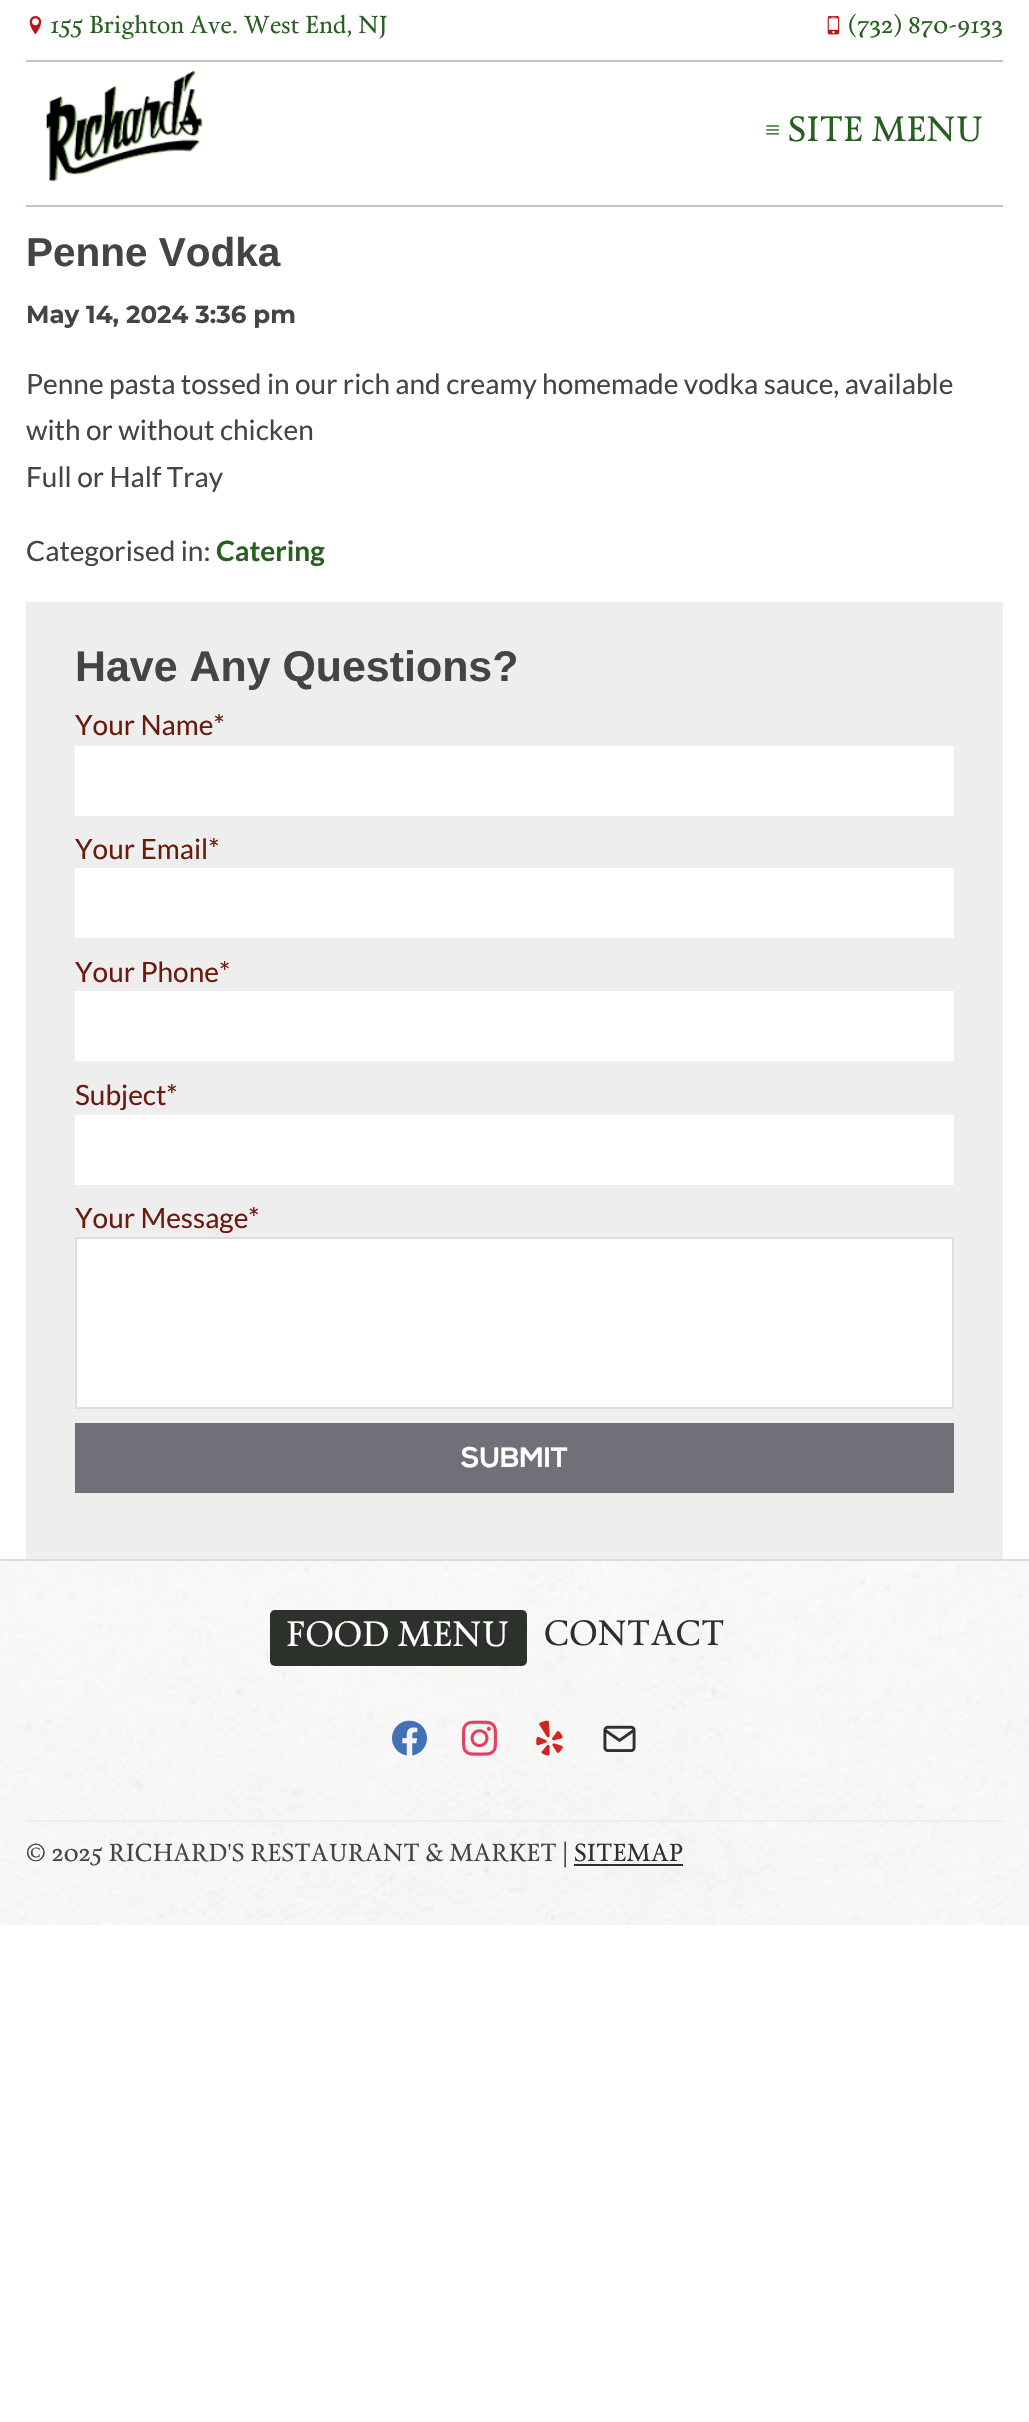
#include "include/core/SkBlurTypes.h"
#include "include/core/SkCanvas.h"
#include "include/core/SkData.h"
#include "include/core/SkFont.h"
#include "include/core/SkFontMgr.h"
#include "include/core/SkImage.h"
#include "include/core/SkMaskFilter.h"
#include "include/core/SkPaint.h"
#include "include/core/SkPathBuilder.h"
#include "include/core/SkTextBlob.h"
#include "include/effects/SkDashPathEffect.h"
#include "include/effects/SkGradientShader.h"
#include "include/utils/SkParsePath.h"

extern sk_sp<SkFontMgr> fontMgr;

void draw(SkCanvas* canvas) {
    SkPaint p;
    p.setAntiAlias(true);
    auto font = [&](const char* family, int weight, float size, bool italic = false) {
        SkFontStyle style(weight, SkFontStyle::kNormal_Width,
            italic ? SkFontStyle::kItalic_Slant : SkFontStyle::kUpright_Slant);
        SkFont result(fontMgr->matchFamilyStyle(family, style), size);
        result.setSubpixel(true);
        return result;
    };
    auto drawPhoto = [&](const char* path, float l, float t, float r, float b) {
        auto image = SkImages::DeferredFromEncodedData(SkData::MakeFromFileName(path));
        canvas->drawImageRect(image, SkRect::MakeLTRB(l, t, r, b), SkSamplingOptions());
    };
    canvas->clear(0xFFFFFFFF);
    drawPhoto("media/1.png", 29, 16, 42, 35);
    auto font1 = font("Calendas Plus", 400, 24.5f);
    p.setColor(0xFF275F1F);
    canvas->drawString("155 Brighton Ave. West End, NJ", 50, 33, font1, p);
    drawPhoto("media/2.png", 827, 16, 840, 35);
    canvas->drawString("(732) 870-9133", 848, 33, font1, p);
    p.setColor(0xFFBACBBB);
    canvas->drawRect(SkRect::MakeLTRB(26, 60, 1003, 62), p);
    canvas->drawRect(SkRect::MakeLTRB(26, 205, 1003, 207), p);
    drawPhoto("media/3.png", 46, 70, 203, 182);
    drawPhoto("media/4.png", 766, 125, 780, 135);
    auto font2 = font("Calendas Plus", 400, 35);
    p.setColor(0xFF275F1F);
    canvas->drawString("SITE MENU", 788, 141, font2, p);
    auto font3 = font("Liberation Sans", 700, 40.5f);
    p.setColor(0xFF444444);
    canvas->drawString("Penne Vodka", 26, 266, font3, p);
    auto font4 = font("Montserrat", 700, 24.5f);
    canvas->drawString("May 14, 2024 3:36 pm", 26, 323, font4, p);
    auto font5 = font("Lato", 400, 28);
    {
        const struct { const char* s; float x, y; } items[] = {
            {"Penne pasta tossed in our rich and creamy homemade vodka sauce, available", 26, 394},
            {"with or without chicken", 26, 440},
            {"Full or Half Tray", 26, 487},
            {"Categorised in:", 26, 561},
        };
        for (auto [s, x, y] : items) {
            canvas->drawString(s, x, y, font5, p);
        }
    }
    auto font6 = font("Lato", 700, 28);
    p.setColor(0xFF275F1F);
    canvas->drawString("Catering", 216, 561, font6, p);
    p.setColor(0xFFEEEEEE);
    canvas->drawRect(SkRect::MakeLTRB(26, 602, 1003, 1559), p);
    auto font7 = font("Liberation Sans", 700, 42.9f);
    p.setColor(0xFF444444);
    canvas->drawString("Have Any Questions?", 75, 681, font7, p);
    p.setColor(0xFF6B1B0E);
    canvas->drawString("Your Name*", 75, 735, font5, p);
    p.setColor(0xFFFFFFFF);
    canvas->drawRect(SkRect::MakeLTRB(75, 746, 954, 816), p);
    p.setColor(0xFF6B1B0E);
    canvas->drawString("Your Email*", 75, 859, font5, p);
    p.setColor(0xFFFFFFFF);
    canvas->drawRect(SkRect::MakeLTRB(75, 868, 954, 938), p);
    p.setColor(0xFF6B1B0E);
    canvas->drawString("Your Phone*", 75, 982, font5, p);
    p.setColor(0xFFFFFFFF);
    canvas->drawRect(SkRect::MakeLTRB(75, 991, 954, 1061), p);
    p.setColor(0xFF6B1B0E);
    canvas->drawString("Subject*", 75, 1105, font5, p);
    p.setColor(0xFFFFFFFF);
    canvas->drawRect(SkRect::MakeLTRB(75, 1115, 954, 1185), p);
    p.setColor(0xFF6B1B0E);
    canvas->drawString("Your Message*", 75, 1228, font5, p);
    p.setColor(0xFFFFFFFF);
    canvas->drawRect(SkRect::MakeLTRB(76, 1238, 953, 1408), p);
    p.setStyle(SkPaint::kStroke_Style);
    p.setStrokeWidth(2);
    p.setColor(0xFFDDDDDD);
    canvas->drawRect(SkRect::MakeLTRB(76, 1238, 953, 1408), p);
    p.setStyle(SkPaint::kFill_Style);
    p.setColor(0xFF716F77);
    canvas->drawRect(SkRect::MakeLTRB(75, 1423, 954, 1493), p);
    auto font8 = font("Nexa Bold", 700, 28);
    p.setColor(0xFFFFFFFF);
    canvas->drawString("SUBMIT", 461, 1467, font8, p);
    drawPhoto("media/5.png", 0, 1561, 1029, 1925);
    p.setColor(0xFFDDDDDD);
    canvas->drawRect(SkRect::MakeLTRB(0, 1559, 1029, 1561), p);
    p.setColor(0xFF2C312B);
    canvas->drawRoundRect(SkRect::MakeLTRB(270, 1610, 527, 1666), 5, 5, p);
    p.setColor(0xFFFFFFFF);
    canvas->drawString("FOOD MENU", 286, 1646, font2, p);
    p.setColor(0xFF2C312B);
    canvas->drawString("CONTACT", 544, 1645, font2, p);
    drawPhoto("media/6.png", 392, 1720, 427, 1756);
    drawPhoto("media/7.png", 462, 1720, 497, 1756);
    drawPhoto("media/8.png", 536, 1720, 563, 1756);
    drawPhoto("media/9.png", 603, 1725, 636, 1752);
    p.setColor(0xFFEEEEEE);
    canvas->drawRect(SkRect::MakeLTRB(26, 1820, 1003, 1822), p);
    p.setColor(0xFF444444);
    canvas->drawString("© 2025 RICHARD'S RESTAURANT & MARKET |", 26, 1861, font1, p);
    p.setColor(0xFF2C312B);
    canvas->drawString("SITEMAP", 574, 1861, font1, p);
    canvas->drawRect(SkRect::MakeLTRB(574, 1864, 683, 1866), p);
}
